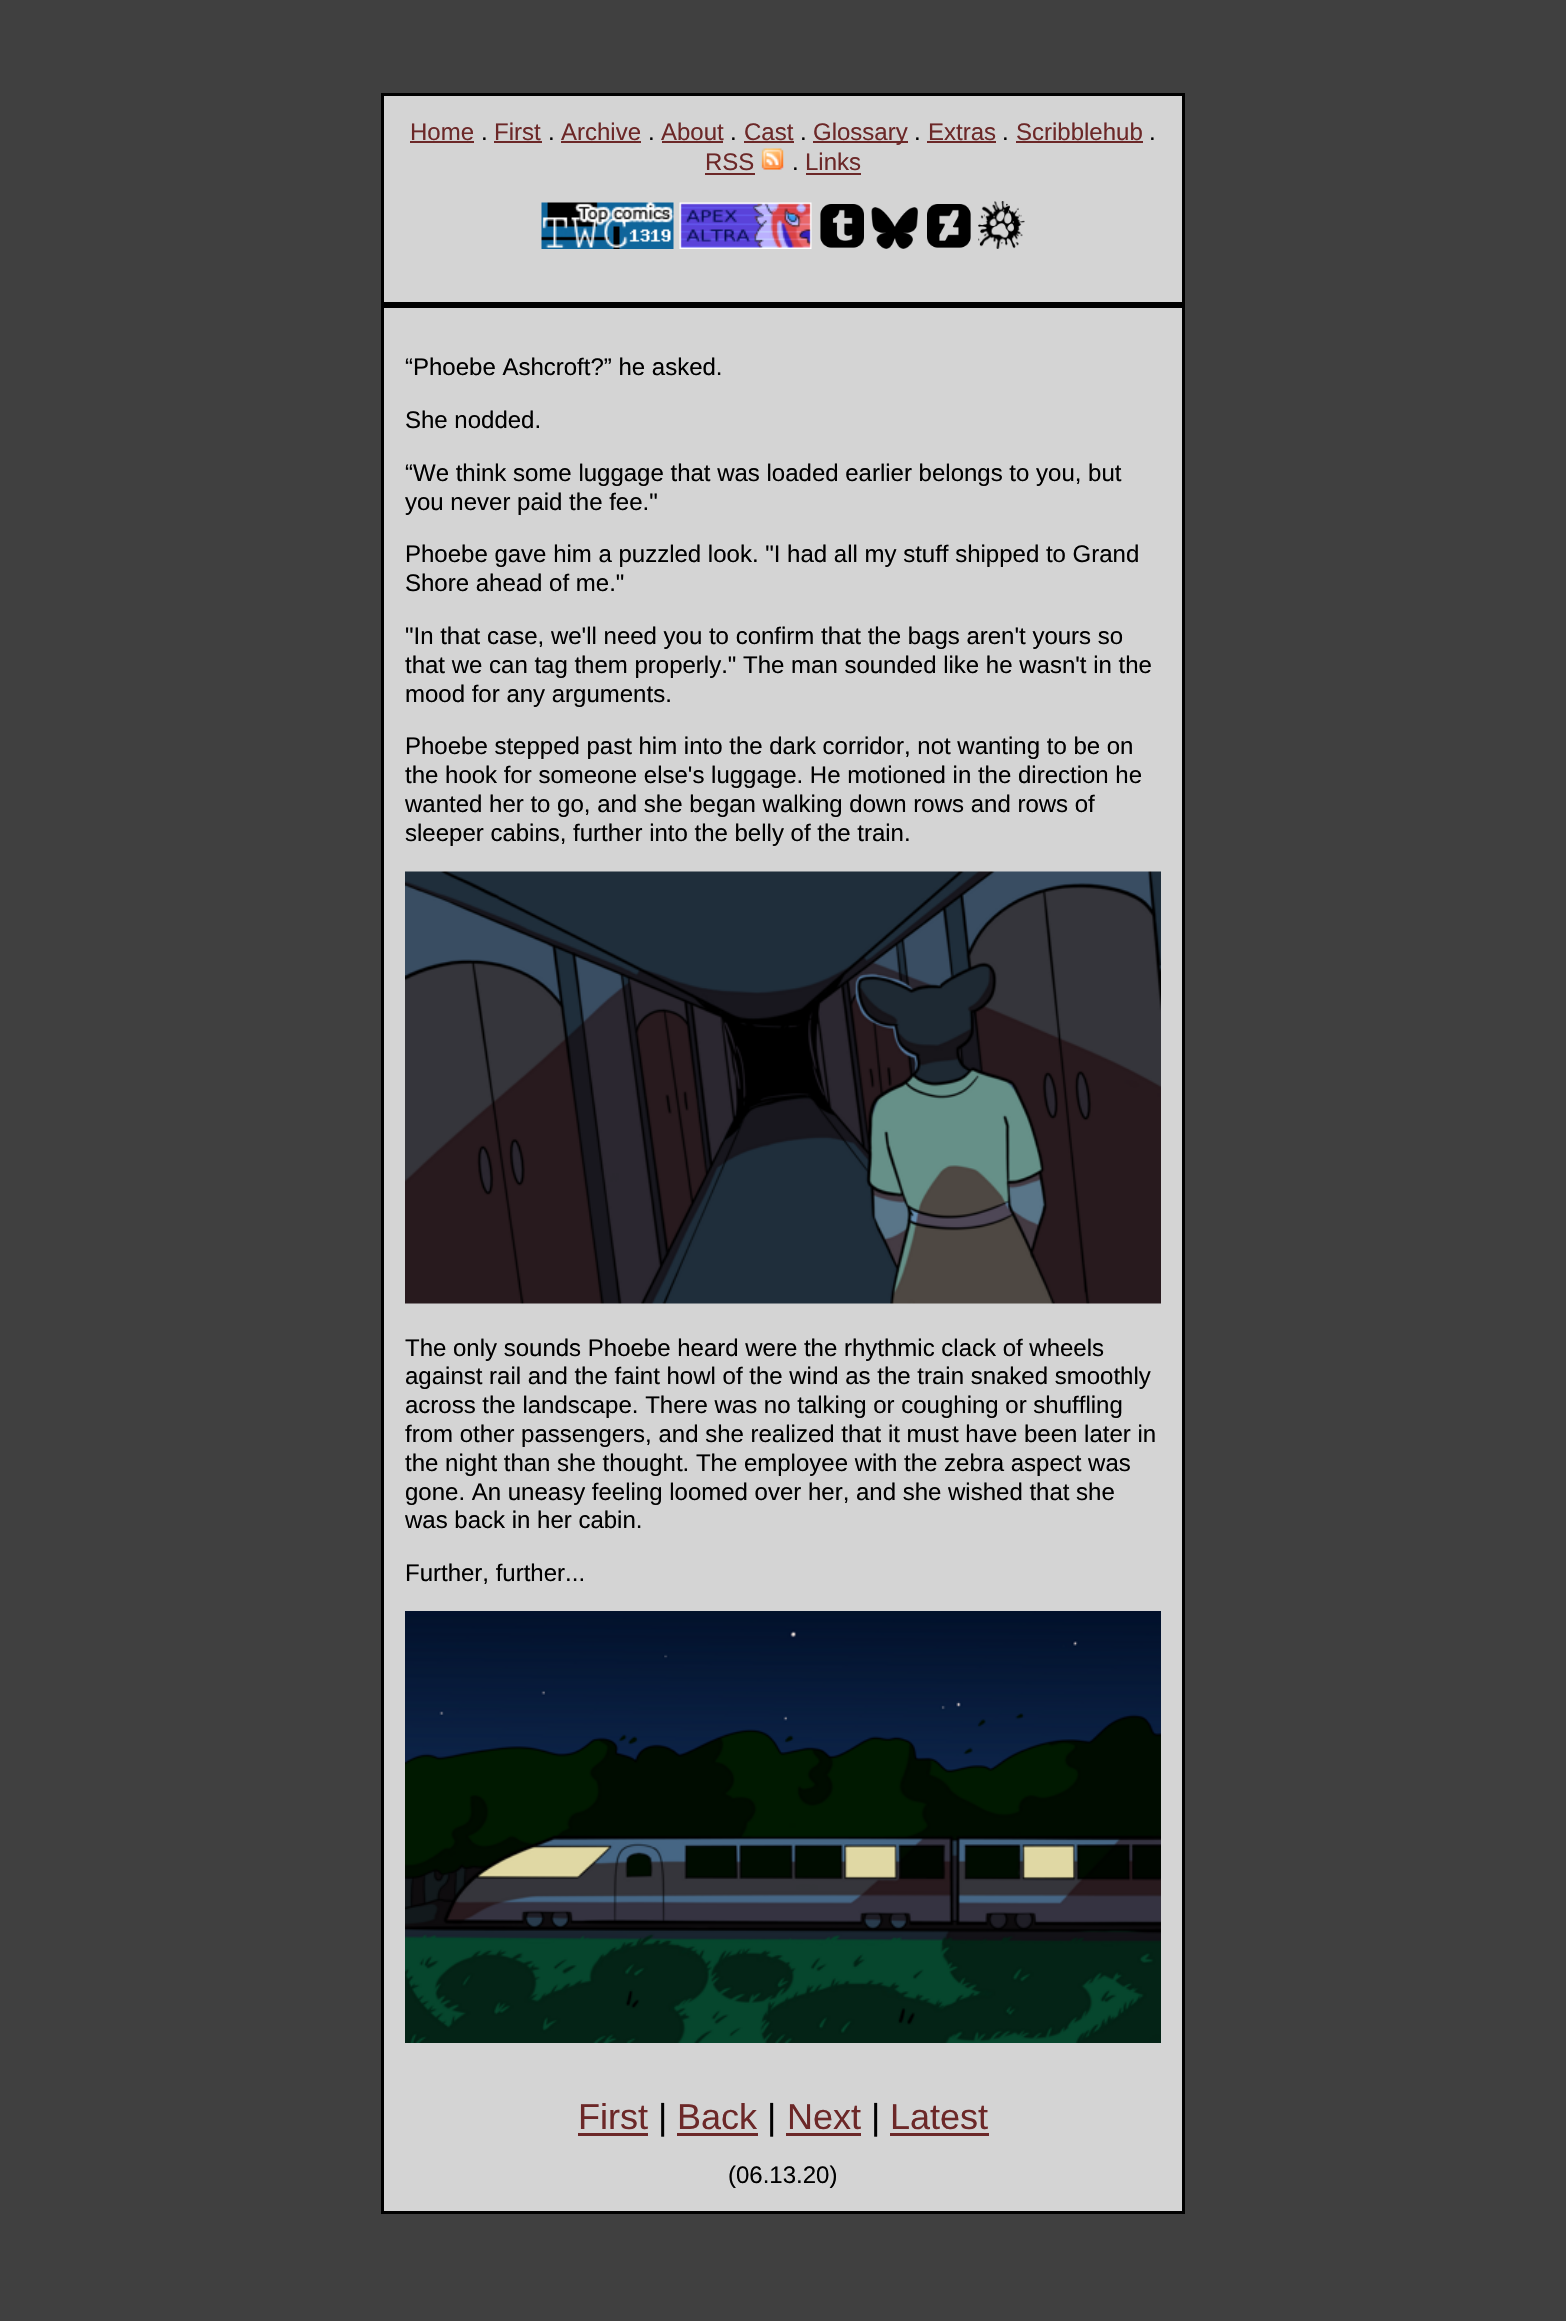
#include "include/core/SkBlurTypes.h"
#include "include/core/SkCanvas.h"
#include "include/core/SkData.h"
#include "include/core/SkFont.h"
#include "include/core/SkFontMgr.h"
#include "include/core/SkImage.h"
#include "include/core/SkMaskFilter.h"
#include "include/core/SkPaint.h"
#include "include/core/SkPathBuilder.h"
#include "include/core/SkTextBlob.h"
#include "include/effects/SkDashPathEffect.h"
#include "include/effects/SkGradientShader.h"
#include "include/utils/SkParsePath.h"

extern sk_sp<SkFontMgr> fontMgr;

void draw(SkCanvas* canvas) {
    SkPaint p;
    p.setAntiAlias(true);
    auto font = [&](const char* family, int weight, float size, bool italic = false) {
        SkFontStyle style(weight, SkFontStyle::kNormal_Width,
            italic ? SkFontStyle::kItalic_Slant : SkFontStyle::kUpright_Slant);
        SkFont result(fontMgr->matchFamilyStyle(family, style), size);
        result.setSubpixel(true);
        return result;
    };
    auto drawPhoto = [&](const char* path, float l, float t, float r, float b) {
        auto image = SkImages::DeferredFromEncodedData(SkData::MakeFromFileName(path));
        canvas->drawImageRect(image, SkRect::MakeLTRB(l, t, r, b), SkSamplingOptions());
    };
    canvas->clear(0xFF404040);
    p.setColor(0xFFD4D4D4);
    canvas->drawRect(SkRect::MakeLTRB(382.5f, 94.5f, 1183.5f, 303.5f), p);
    p.setStyle(SkPaint::kStroke_Style);
    p.setStrokeWidth(3);
    p.setColor(0xFF000000);
    canvas->drawRect(SkRect::MakeLTRB(382.5f, 94.5f, 1183.5f, 303.5f), p);
    auto font1 = font("Liberation Sans", 400, 24);
    p.setStyle(SkPaint::kFill_Style);
    p.setColor(0xFF6C2828);
    canvas->drawString("Home", 410, 140, font1, p);
    canvas->drawRect(SkRect::MakeLTRB(410, 141, 474, 143), p);
    p.setColor(0xFF000000);
    canvas->drawString(".", 481, 140, font1, p);
    p.setColor(0xFF6C2828);
    canvas->drawString("First", 494, 140, font1, p);
    canvas->drawRect(SkRect::MakeLTRB(494, 141, 542, 143), p);
    p.setColor(0xFF000000);
    canvas->drawString(".", 548, 140, font1, p);
    p.setColor(0xFF6C2828);
    canvas->drawString("Archive", 561, 140, font1, p);
    canvas->drawRect(SkRect::MakeLTRB(561, 141, 641, 143), p);
    p.setColor(0xFF000000);
    canvas->drawString(".", 648, 140, font1, p);
    p.setColor(0xFF6C2828);
    canvas->drawString("About", 661, 140, font1, p);
    canvas->drawRect(SkRect::MakeLTRB(662, 141, 723, 143), p);
    p.setColor(0xFF000000);
    canvas->drawString(".", 730, 140, font1, p);
    p.setColor(0xFF6C2828);
    canvas->drawString("Cast", 744, 140, font1, p);
    canvas->drawRect(SkRect::MakeLTRB(744, 141, 794, 143), p);
    p.setColor(0xFF000000);
    canvas->drawString(".", 800, 140, font1, p);
    p.setColor(0xFF6C2828);
    canvas->drawRect(SkRect::MakeLTRB(813, 141, 908, 143), p);
    canvas->drawString("Glossary", 813, 140, font1, p);
    p.setColor(0xFF000000);
    canvas->drawString(".", 914, 140, font1, p);
    p.setColor(0xFF6C2828);
    canvas->drawString("Extras", 928, 140, font1, p);
    canvas->drawRect(SkRect::MakeLTRB(927, 141, 996, 143), p);
    p.setColor(0xFF000000);
    canvas->drawString(".", 1002, 140, font1, p);
    p.setColor(0xFF6C2828);
    canvas->drawString("Scribblehub", 1016, 140, font1, p);
    canvas->drawRect(SkRect::MakeLTRB(1016, 141, 1143, 143), p);
    p.setColor(0xFF000000);
    canvas->drawString(".", 1149, 140, font1, p);
    p.setColor(0xFF6C2828);
    canvas->drawString("RSS", 705, 170, font1, p);
    canvas->drawRect(SkRect::MakeLTRB(705, 173, 755, 175), p);
    drawPhoto("media/1.png", 761, 148, 784, 170);
    p.setColor(0xFF000000);
    canvas->drawString(".", 792, 170, font1, p);
    p.setColor(0xFF6C2828);
    canvas->drawString("Links", 805, 170, font1, p);
    canvas->drawRect(SkRect::MakeLTRB(806, 173, 861, 175), p);
    drawPhoto("media/2.png", 541, 202, 674, 249);
    drawPhoto("media/3.png", 679, 202, 812, 249);
    drawPhoto("media/4.png", 820, 204, 864, 248);
    drawPhoto("media/5.png", 871, 207, 918, 249);
    drawPhoto("media/6.png", 927, 204, 971, 248);
    drawPhoto("media/7.png", 978, 201, 1025, 249);
    p.setColor(0xFFD4D4D4);
    canvas->drawRect(SkRect::MakeLTRB(382.5f, 306.5f, 1183.5f, 2212.5f), p);
    p.setStyle(SkPaint::kStroke_Style);
    p.setColor(0xFF000000);
    canvas->drawRect(SkRect::MakeLTRB(382.5f, 306.5f, 1183.5f, 2212.5f), p);
    p.setStyle(SkPaint::kFill_Style);
    {
        const struct { const char* s; float x, y; } items[] = {
            {"“Phoebe Ashcroft?” he asked.", 405, 375},
            {"She nodded.", 405, 428},
            {"“We think some luggage that was loaded earlier belongs to you, but", 405, 481},
            {"you never paid the fee.\"", 405, 510},
            {"Phoebe gave him a puzzled look. \"I had all my stuff shipped to Grand", 405, 562},
            {"Shore ahead of me.\"", 405, 591},
            {"\"In that case, we'll need you to confirm that the bags aren't yours so", 405, 644},
            {"that we can tag them properly.\" The man sounded like he wasn't in the", 405, 673},
            {"mood for any arguments.", 405, 702},
            {"Phoebe stepped past him into the dark corridor, not wanting to be on", 405, 754},
            {"the hook for someone else's luggage. He motioned in the direction he", 405, 783},
            {"wanted her to go, and she began walking down rows and rows of", 405, 812},
            {"sleeper cabins, further into the belly of the train.", 405, 841},
        };
        for (auto [s, x, y] : items) {
            canvas->drawString(s, x, y, font1, p);
        }
    }
    drawPhoto("media/8.png", 405, 871, 1161, 1304);
    {
        const struct { const char* s; float x, y; } items[] = {
            {"The only sounds Phoebe heard were the rhythmic clack of wheels", 405, 1356},
            {"against rail and the faint howl of the wind as the train snaked smoothly", 405, 1384},
            {"across the landscape. There was no talking or coughing or shuffling", 405, 1413},
            {"from other passengers, and she realized that it must have been later in", 405, 1442},
            {"the night than she thought. The employee with the zebra aspect was", 405, 1471},
            {"gone. An uneasy feeling loomed over her, and she wished that she", 405, 1500},
            {"was back in her cabin.", 405, 1528},
            {"Further, further...", 405, 1581},
        };
        for (auto [s, x, y] : items) {
            canvas->drawString(s, x, y, font1, p);
        }
    }
    drawPhoto("media/9.png", 405, 1611, 1161, 2043);
    auto font2 = font("Liberation Sans", 400, 36);
    p.setColor(0xFF6C2828);
    canvas->drawString("First", 578, 2129, font2, p);
    canvas->drawRect(SkRect::MakeLTRB(578, 2133, 648, 2136), p);
    p.setColor(0xFF000000);
    canvas->drawString("|", 658, 2129, font2, p);
    p.setColor(0xFF6C2828);
    canvas->drawString("Back", 677, 2129, font2, p);
    canvas->drawRect(SkRect::MakeLTRB(677, 2133, 758, 2136), p);
    p.setColor(0xFF000000);
    canvas->drawString("|", 767, 2129, font2, p);
    p.setColor(0xFF6C2828);
    canvas->drawString("Next", 787, 2129, font2, p);
    canvas->drawRect(SkRect::MakeLTRB(786, 2133, 861, 2136), p);
    p.setColor(0xFF000000);
    canvas->drawString("|", 871, 2129, font2, p);
    p.setColor(0xFF6C2828);
    canvas->drawString("Latest", 890, 2129, font2, p);
    canvas->drawRect(SkRect::MakeLTRB(890, 2133, 989, 2136), p);
    p.setColor(0xFF000000);
    canvas->drawString("(06.13.20)", 728, 2183, font1, p);
}
